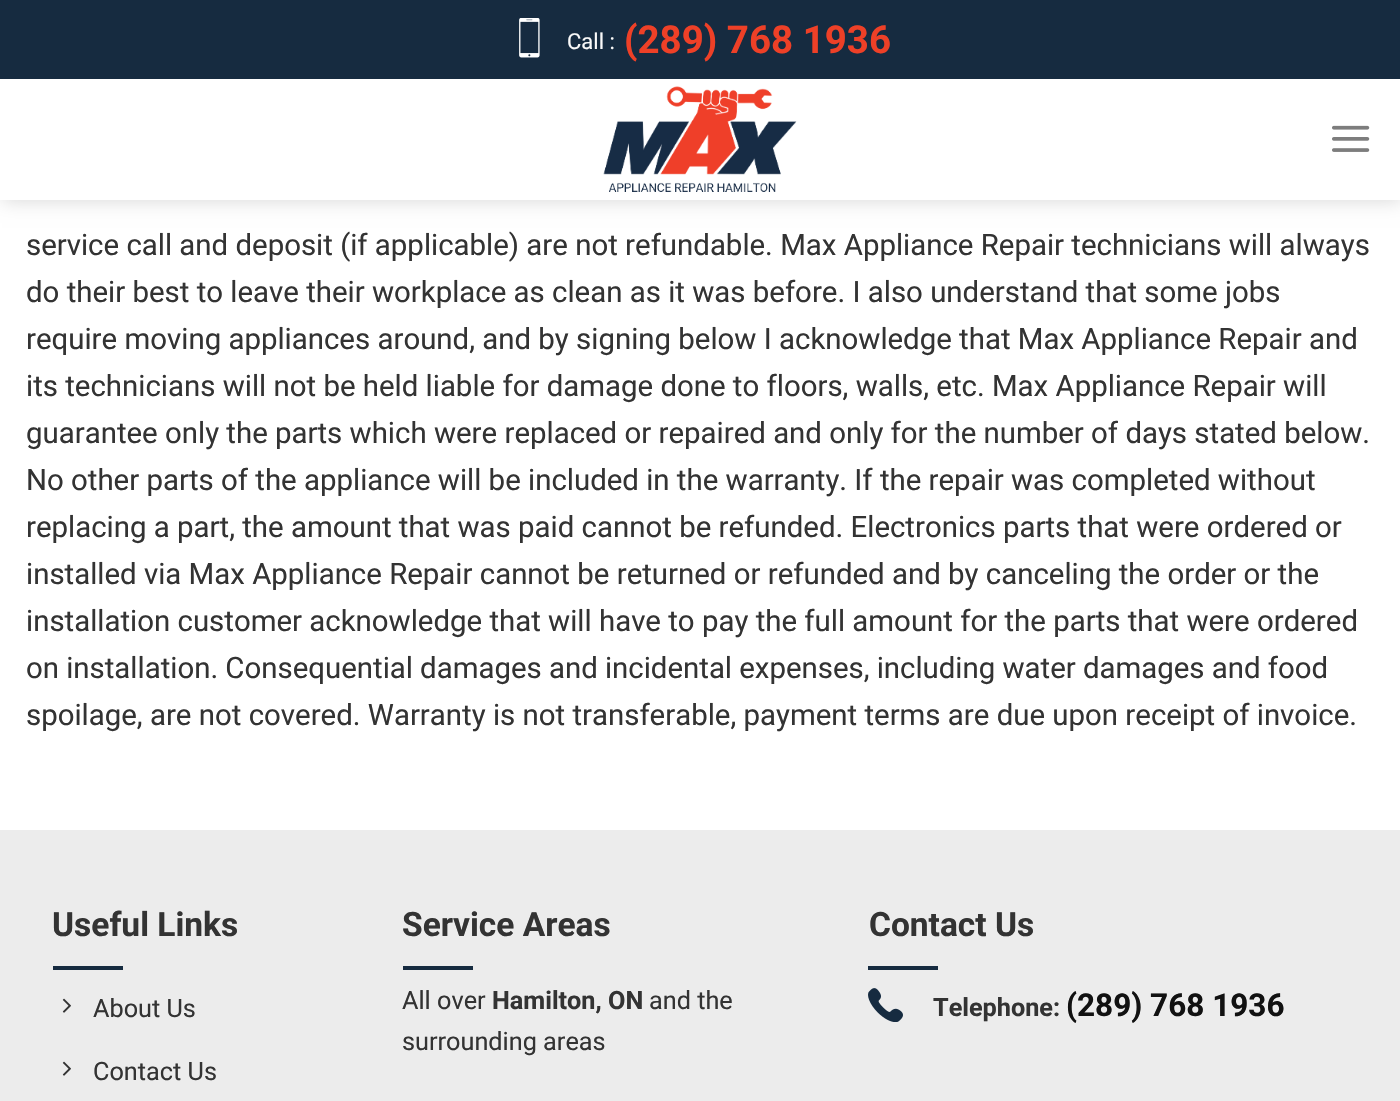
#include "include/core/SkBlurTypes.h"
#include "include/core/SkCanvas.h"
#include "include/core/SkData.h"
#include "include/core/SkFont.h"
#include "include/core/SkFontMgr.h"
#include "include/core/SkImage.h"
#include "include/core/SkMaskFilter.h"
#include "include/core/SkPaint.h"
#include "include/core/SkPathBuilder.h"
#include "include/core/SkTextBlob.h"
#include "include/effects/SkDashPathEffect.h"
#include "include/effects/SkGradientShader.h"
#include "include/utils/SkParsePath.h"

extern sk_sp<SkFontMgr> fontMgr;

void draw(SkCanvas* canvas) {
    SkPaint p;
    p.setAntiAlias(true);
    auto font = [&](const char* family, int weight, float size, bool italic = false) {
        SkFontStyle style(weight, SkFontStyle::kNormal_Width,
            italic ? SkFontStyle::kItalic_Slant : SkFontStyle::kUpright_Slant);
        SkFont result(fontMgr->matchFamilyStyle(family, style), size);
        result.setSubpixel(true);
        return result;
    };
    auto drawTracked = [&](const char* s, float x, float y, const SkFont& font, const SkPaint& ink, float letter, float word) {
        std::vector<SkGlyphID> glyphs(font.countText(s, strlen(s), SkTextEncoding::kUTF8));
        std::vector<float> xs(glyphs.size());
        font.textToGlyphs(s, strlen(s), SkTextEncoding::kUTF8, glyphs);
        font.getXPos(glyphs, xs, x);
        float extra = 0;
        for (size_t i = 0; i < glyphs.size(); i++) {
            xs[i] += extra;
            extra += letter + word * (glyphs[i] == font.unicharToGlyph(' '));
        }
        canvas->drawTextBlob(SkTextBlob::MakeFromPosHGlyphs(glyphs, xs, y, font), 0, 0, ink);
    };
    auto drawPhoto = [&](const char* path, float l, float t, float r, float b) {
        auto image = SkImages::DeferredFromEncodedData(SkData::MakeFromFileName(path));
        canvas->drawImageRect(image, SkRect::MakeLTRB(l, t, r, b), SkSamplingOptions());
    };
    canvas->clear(0xFFFFFFFF);
    p.setColor(0x26000000);
    p.setMaskFilter(SkMaskFilter::MakeBlur(kNormal_SkBlurStyle, 9));
    canvas->drawRect(SkRect::MakeLTRB(2, 2, 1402, 201), p);
    p.setMaskFilter(nullptr);
    p.setColor(0xFF162B40);
    canvas->drawRect(SkRect::MakeLTRB(0, 0, 1400, 79), p);
    drawPhoto("media/1.png", 519, 18, 540, 58);
    auto font1 = font("Roboto", 400, 22);
    p.setColor(0xFFF9F9F9);
    canvas->drawString("Call :", 567, 49, font1, p);
    auto font2 = font("Roboto", 700, 38.5f);
    p.setColor(0xFFEE4027);
    canvas->drawString("(289) 768 1936", 624, 53, font2, p);
    p.setColor(0xFFFFFFFF);
    canvas->drawRect(SkRect::MakeLTRB(0, 79, 1400, 200), p);
    drawPhoto("media/2.png", 603, 86, 797, 192);
    drawPhoto("media/3.png", 1332, 125, 1370, 152);
    auto font3 = font("Roboto", 400, 29.4f);
    p.setColor(0xFF333333);
    {
        const struct { const char* s; float x, y; } items[] = {
            {"service call and deposit (if applicable) are not refundable. Max Appliance Repair technicians will always", 26, 255},
            {"do their best to leave their workplace as clean as it was before. I also understand that some jobs", 26, 302},
            {"require moving appliances around, and by signing below I acknowledge that Max Appliance Repair and", 26, 349},
            {"its technicians will not be held liable for damage done to floors, walls, etc. Max Appliance Repair will", 26, 396},
            {"guarantee only the parts which were replaced or repaired and only for the number of days stated below.", 26, 443},
            {"No other parts of the appliance will be included in the warranty. If the repair was completed without", 26, 490},
            {"replacing a part, the amount that was paid cannot be refunded. Electronics parts that were ordered or", 26, 537},
            {"installed via Max Appliance Repair cannot be returned or refunded and by canceling the order or the", 26, 584},
            {"installation customer acknowledge that will have to pay the full amount for the parts that were ordered", 26, 631},
        };
        for (auto [s, x, y] : items) {
            canvas->drawString(s, x, y, font3, p);
        }
    }
    drawTracked("on installation. Consequential damages and incidental expenses, including water damages and food", 26, 678, font3, p, 0, -0.1f);
    canvas->drawString("spoilage, are not covered. Warranty is not transferable, payment terms are due upon receipt of invoice.", 26, 725, font3, p);
    p.setColor(0xFFECECEC);
    canvas->drawRect(SkRect::MakeLTRB(0, 830, 1400, 1101), p);
    auto font4 = font("Roboto", 700, 33.5f);
    p.setColor(0xFF333333);
    canvas->drawString("Useful Links", 52, 936, font4, p);
    p.setColor(0xFF162B40);
    canvas->drawRect(SkRect::MakeLTRB(53, 966, 123, 970), p);
    drawPhoto("media/4.png", 62, 998, 71, 1013);
    auto font5 = font("Roboto", 400, 25.25f);
    p.setColor(0xFF333333);
    canvas->drawString("About Us", 93, 1017, font5, p);
    drawPhoto("media/4.png", 62, 1061, 71, 1076);
    canvas->drawString("Contact Us", 93, 1080, font5, p);
    canvas->drawString("Service Areas", 402, 936, font4, p);
    p.setColor(0xFF162B40);
    canvas->drawRect(SkRect::MakeLTRB(403, 966, 473, 970), p);
    p.setColor(0xFF333333);
    canvas->drawString("All over", 402, 1009, font5, p);
    auto font6 = font("Roboto", 700, 25.25f);
    canvas->drawString("Hamilton, ON", 492, 1009, font6, p);
    canvas->drawString("and the", 649, 1009, font5, p);
    canvas->drawString("surrounding areas", 402, 1050, font5, p);
    canvas->drawString("Contact Us", 869, 936, font4, p);
    p.setColor(0xFF162B40);
    canvas->drawRect(SkRect::MakeLTRB(868, 966, 938, 970), p);
    drawPhoto("media/5.png", 868, 988, 903, 1022);
    p.setColor(0xFF333333);
    canvas->drawString("Telephone:", 933, 1016, font6, p);
    auto font7 = font("Roboto", 700, 31.5f);
    p.setColor(0xFF111111);
    canvas->drawString("(289) 768 1936", 1066, 1016, font7, p);
}
